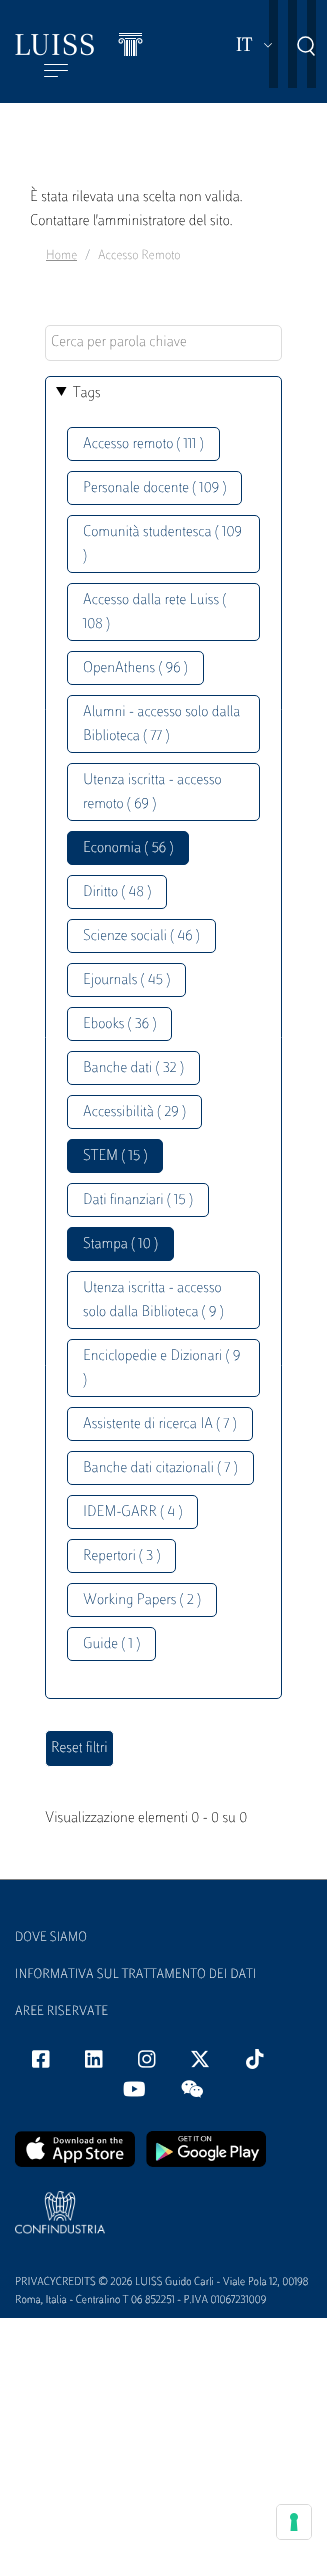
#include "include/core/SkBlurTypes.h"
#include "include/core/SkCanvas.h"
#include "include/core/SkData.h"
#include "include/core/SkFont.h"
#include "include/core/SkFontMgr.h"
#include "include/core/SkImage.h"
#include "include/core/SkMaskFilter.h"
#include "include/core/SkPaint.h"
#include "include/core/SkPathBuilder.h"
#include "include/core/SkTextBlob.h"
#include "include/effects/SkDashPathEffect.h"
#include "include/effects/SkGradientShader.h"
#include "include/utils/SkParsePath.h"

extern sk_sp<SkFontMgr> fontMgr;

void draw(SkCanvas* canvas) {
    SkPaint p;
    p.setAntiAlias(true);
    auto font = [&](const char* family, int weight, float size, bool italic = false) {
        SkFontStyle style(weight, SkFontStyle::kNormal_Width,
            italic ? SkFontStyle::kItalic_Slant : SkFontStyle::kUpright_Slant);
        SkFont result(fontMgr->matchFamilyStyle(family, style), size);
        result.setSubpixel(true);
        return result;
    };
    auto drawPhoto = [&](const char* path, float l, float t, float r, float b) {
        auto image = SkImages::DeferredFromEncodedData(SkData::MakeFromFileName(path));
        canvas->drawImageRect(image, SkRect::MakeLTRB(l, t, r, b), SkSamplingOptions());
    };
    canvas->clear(0xFFFFFFFF);
    p.setColor(0xFF003365);
    canvas->drawRect(SkRect::MakeLTRB(0, 0, 327, 103), p);
    drawPhoto("media/1.png", 15, 33, 143, 56);
    auto font1 = font("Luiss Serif", 400, 20);
    p.setColor(0xFFFFFFFF);
    canvas->drawString("IT", 236, 51, font1, p);
    p.setColor(0xFF002240);
    canvas->drawRect(SkRect::MakeLTRB(269, 0, 278, 88), p);
    drawPhoto("media/2.png", 264, 43, 272, 48);
    canvas->drawRect(SkRect::MakeLTRB(307, 0, 316, 88), p);
    p.setStyle(SkPaint::kStroke_Style);
    p.setStrokeWidth(1.6f);
    p.setColor(0xFFFFFFFF);
    canvas->drawCircle(305.5f, 44.5f, 7.5f, p);
    p.setStrokeCap(SkPaint::kRound_Cap);
    p.setStrokeJoin(SkPaint::kRound_Join);
    canvas->drawPath(SkPathBuilder().moveTo(314, 55).lineTo(310, 50.5f).detach(), p);
    p.setStyle(SkPaint::kFill_Style);
    canvas->drawRoundRect(SkRect::MakeLTRB(44, 64, 68, 65), 0.5f, 0.5f, p);
    canvas->drawRoundRect(SkRect::MakeLTRB(44, 70, 68, 71), 0.5f, 0.5f, p);
    canvas->drawRoundRect(SkRect::MakeLTRB(44, 76, 58, 77), 0.5f, 0.5f, p);
    p.setColor(0xFF002240);
    canvas->drawRect(SkRect::MakeLTRB(288, 0, 297, 88), p);
    auto font2 = font("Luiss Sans", 100, 16);
    p.setColor(0xFF010101);
    canvas->drawString("È stata rilevata una scelta non valida.", 30, 201, font2, p);
    canvas->drawString("Contattare l'amministratore del sito.", 30, 225, font2, p);
    auto font3 = font("Luiss Sans", 100, 14);
    p.setColor(0xFF909090);
    canvas->drawString("Home", 46, 259, font3, p);
    canvas->drawRect(SkRect::MakeLTRB(46, 260, 77, 261), p);
    p.setColor(0xFF6C757D);
    canvas->drawString("/", 85, 259, font3, p);
    p.setColor(0xFF909090);
    canvas->drawString("Accesso Remoto", 98, 259, font3, p);
    p.setStyle(SkPaint::kStroke_Style);
    p.setStrokeWidth(1);
    p.setStrokeCap(SkPaint::kButt_Cap);
    p.setStrokeJoin(SkPaint::kMiter_Join);
    p.setColor(0xFFDDDDDD);
    canvas->drawRoundRect(SkRect::MakeLTRB(45.5f, 325.5f, 281.5f, 360.5f), 4.5f, 4.5f, p);
    p.setStyle(SkPaint::kFill_Style);
    p.setColor(0xFF757575);
    canvas->drawString("Cerca per parola chiave", 51, 346, font2, p);
    p.setStyle(SkPaint::kStroke_Style);
    p.setColor(0xFF003365);
    canvas->drawRoundRect(SkRect::MakeLTRB(45.5f, 376.5f, 281.5f, 1698.5f), 4.5f, 4.5f, p);
    p.setStyle(SkPaint::kFill_Style);
    p.setColor(0xFF010101);
    canvas->drawPath(SkPathBuilder().moveTo(56, 387).lineTo(66.5f, 387).lineTo(61.5f, 396).close().detach(), p);
    canvas->drawString("Tags", 73, 397, font2, p);
    p.setStyle(SkPaint::kStroke_Style);
    p.setColor(0xFF003365);
    canvas->drawRoundRect(SkRect::MakeLTRB(67.5f, 427.5f, 219.5f, 460.5f), 4.5f, 4.5f, p);
    p.setStyle(SkPaint::kFill_Style);
    canvas->drawString("Accesso remoto ( 111 )", 83, 448, font2, p);
    p.setStyle(SkPaint::kStroke_Style);
    canvas->drawRoundRect(SkRect::MakeLTRB(67.5f, 471.5f, 241.5f, 504.5f), 4.5f, 4.5f, p);
    p.setStyle(SkPaint::kFill_Style);
    canvas->drawString("Personale docente ( 109 )", 83, 492, font2, p);
    p.setStyle(SkPaint::kStroke_Style);
    canvas->drawRoundRect(SkRect::MakeLTRB(67.5f, 515.5f, 259.5f, 572.5f), 4.5f, 4.5f, p);
    p.setStyle(SkPaint::kFill_Style);
    canvas->drawString("Comunità studentesca ( 109", 83, 536, font2, p);
    canvas->drawString(")", 83, 560, font2, p);
    p.setStyle(SkPaint::kStroke_Style);
    canvas->drawRoundRect(SkRect::MakeLTRB(67.5f, 583.5f, 259.5f, 640.5f), 4.5f, 4.5f, p);
    p.setStyle(SkPaint::kFill_Style);
    canvas->drawString("Accesso dalla rete Luiss (", 83, 604, font2, p);
    canvas->drawString("108 )", 83, 628, font2, p);
    p.setStyle(SkPaint::kStroke_Style);
    canvas->drawRoundRect(SkRect::MakeLTRB(67.5f, 651.5f, 203.5f, 684.5f), 4.5f, 4.5f, p);
    p.setStyle(SkPaint::kFill_Style);
    canvas->drawString("OpenAthens ( 96 )", 83, 672, font2, p);
    p.setStyle(SkPaint::kStroke_Style);
    canvas->drawRoundRect(SkRect::MakeLTRB(67.5f, 695.5f, 259.5f, 752.5f), 4.5f, 4.5f, p);
    p.setStyle(SkPaint::kFill_Style);
    canvas->drawString("Alumni - accesso solo dalla", 83, 716, font2, p);
    canvas->drawString("Biblioteca ( 77 )", 83, 740, font2, p);
    p.setStyle(SkPaint::kStroke_Style);
    canvas->drawRoundRect(SkRect::MakeLTRB(67.5f, 763.5f, 259.5f, 820.5f), 4.5f, 4.5f, p);
    p.setStyle(SkPaint::kFill_Style);
    canvas->drawString("Utenza iscritta - accesso", 83, 784, font2, p);
    canvas->drawString("remoto ( 69 )", 83, 808, font2, p);
    canvas->drawRoundRect(SkRect::MakeLTRB(67.5f, 831.5f, 188.5f, 864.5f), 4.5f, 4.5f, p);
    p.setStyle(SkPaint::kStroke_Style);
    canvas->drawRoundRect(SkRect::MakeLTRB(67.5f, 831.5f, 188.5f, 864.5f), 4.5f, 4.5f, p);
    p.setStyle(SkPaint::kFill_Style);
    p.setColor(0xFFFFFFFF);
    canvas->drawString("Economia ( 56 )", 83, 852, font2, p);
    p.setStyle(SkPaint::kStroke_Style);
    p.setColor(0xFF003365);
    canvas->drawRoundRect(SkRect::MakeLTRB(67.5f, 875.5f, 166.5f, 908.5f), 4.5f, 4.5f, p);
    p.setStyle(SkPaint::kFill_Style);
    canvas->drawString("Diritto ( 48 )", 83, 896, font2, p);
    p.setStyle(SkPaint::kStroke_Style);
    canvas->drawRoundRect(SkRect::MakeLTRB(67.5f, 919.5f, 215.5f, 952.5f), 4.5f, 4.5f, p);
    p.setStyle(SkPaint::kFill_Style);
    canvas->drawString("Scienze sociali ( 46 )", 83, 940, font2, p);
    p.setStyle(SkPaint::kStroke_Style);
    canvas->drawRoundRect(SkRect::MakeLTRB(67.5f, 963.5f, 185.5f, 996.5f), 4.5f, 4.5f, p);
    p.setStyle(SkPaint::kFill_Style);
    canvas->drawString("Ejournals ( 45 )", 83, 984, font2, p);
    p.setStyle(SkPaint::kStroke_Style);
    canvas->drawRoundRect(SkRect::MakeLTRB(67.5f, 1007.5f, 171.5f, 1040.5f), 4.5f, 4.5f, p);
    p.setStyle(SkPaint::kFill_Style);
    canvas->drawString("Ebooks ( 36 )", 83, 1028, font2, p);
    p.setStyle(SkPaint::kStroke_Style);
    canvas->drawRoundRect(SkRect::MakeLTRB(67.5f, 1051.5f, 199.5f, 1084.5f), 4.5f, 4.5f, p);
    p.setStyle(SkPaint::kFill_Style);
    canvas->drawString("Banche dati ( 32 )", 83, 1072, font2, p);
    p.setStyle(SkPaint::kStroke_Style);
    canvas->drawRoundRect(SkRect::MakeLTRB(67.5f, 1095.5f, 201.5f, 1128.5f), 4.5f, 4.5f, p);
    p.setStyle(SkPaint::kFill_Style);
    canvas->drawString("Accessibilità ( 29 )", 83, 1116, font2, p);
    canvas->drawRoundRect(SkRect::MakeLTRB(67.5f, 1139.5f, 162.5f, 1172.5f), 4.5f, 4.5f, p);
    p.setStyle(SkPaint::kStroke_Style);
    canvas->drawRoundRect(SkRect::MakeLTRB(67.5f, 1139.5f, 162.5f, 1172.5f), 4.5f, 4.5f, p);
    p.setStyle(SkPaint::kFill_Style);
    p.setColor(0xFFFFFFFF);
    canvas->drawString("STEM ( 15 )", 83, 1160, font2, p);
    p.setStyle(SkPaint::kStroke_Style);
    p.setColor(0xFF003365);
    canvas->drawRoundRect(SkRect::MakeLTRB(67.5f, 1183.5f, 208.5f, 1216.5f), 4.5f, 4.5f, p);
    p.setStyle(SkPaint::kFill_Style);
    canvas->drawString("Dati finanziari ( 15 )", 83, 1204, font2, p);
    canvas->drawRoundRect(SkRect::MakeLTRB(67.5f, 1227.5f, 173.5f, 1260.5f), 4.5f, 4.5f, p);
    p.setStyle(SkPaint::kStroke_Style);
    canvas->drawRoundRect(SkRect::MakeLTRB(67.5f, 1227.5f, 173.5f, 1260.5f), 4.5f, 4.5f, p);
    p.setStyle(SkPaint::kFill_Style);
    p.setColor(0xFFFFFFFF);
    canvas->drawString("Stampa ( 10 )", 83, 1248, font2, p);
    p.setStyle(SkPaint::kStroke_Style);
    p.setColor(0xFF003365);
    canvas->drawRoundRect(SkRect::MakeLTRB(67.5f, 1271.5f, 259.5f, 1328.5f), 4.5f, 4.5f, p);
    p.setStyle(SkPaint::kFill_Style);
    canvas->drawString("Utenza iscritta - accesso", 83, 1292, font2, p);
    canvas->drawString("solo dalla Biblioteca ( 9 )", 83, 1316, font2, p);
    p.setStyle(SkPaint::kStroke_Style);
    canvas->drawRoundRect(SkRect::MakeLTRB(67.5f, 1339.5f, 259.5f, 1396.5f), 4.5f, 4.5f, p);
    p.setStyle(SkPaint::kFill_Style);
    canvas->drawString("Enciclopedie e Dizionari ( 9", 83, 1360, font2, p);
    canvas->drawString(")", 83, 1384, font2, p);
    p.setStyle(SkPaint::kStroke_Style);
    canvas->drawRoundRect(SkRect::MakeLTRB(67.5f, 1407.5f, 252.5f, 1440.5f), 4.5f, 4.5f, p);
    p.setStyle(SkPaint::kFill_Style);
    canvas->drawString("Assistente di ricerca IA ( 7 )", 83, 1428, font2, p);
    p.setStyle(SkPaint::kStroke_Style);
    canvas->drawRoundRect(SkRect::MakeLTRB(67.5f, 1451.5f, 253.5f, 1484.5f), 4.5f, 4.5f, p);
    p.setStyle(SkPaint::kFill_Style);
    canvas->drawString("Banche dati citazionali ( 7 )", 83, 1472, font2, p);
    p.setStyle(SkPaint::kStroke_Style);
    canvas->drawRoundRect(SkRect::MakeLTRB(67.5f, 1495.5f, 197.5f, 1528.5f), 4.5f, 4.5f, p);
    p.setStyle(SkPaint::kFill_Style);
    canvas->drawString("IDEM-GARR ( 4 )", 83, 1516, font2, p);
    p.setStyle(SkPaint::kStroke_Style);
    canvas->drawRoundRect(SkRect::MakeLTRB(67.5f, 1539.5f, 175.5f, 1572.5f), 4.5f, 4.5f, p);
    p.setStyle(SkPaint::kFill_Style);
    canvas->drawString("Repertori ( 3 )", 83, 1560, font2, p);
    p.setStyle(SkPaint::kStroke_Style);
    canvas->drawRoundRect(SkRect::MakeLTRB(67.5f, 1583.5f, 216.5f, 1616.5f), 4.5f, 4.5f, p);
    p.setStyle(SkPaint::kFill_Style);
    canvas->drawString("Working Papers ( 2 )", 83, 1604, font2, p);
    p.setStyle(SkPaint::kStroke_Style);
    canvas->drawRoundRect(SkRect::MakeLTRB(67.5f, 1627.5f, 155.5f, 1660.5f), 4.5f, 4.5f, p);
    p.setStyle(SkPaint::kFill_Style);
    canvas->drawString("Guide ( 1 )", 83, 1648, font2, p);
    canvas->drawRoundRect(SkRect::MakeLTRB(45.5f, 1730.5f, 113.5f, 1766.5f), 4.5f, 4.5f, p);
    p.setStyle(SkPaint::kStroke_Style);
    p.setColor(0xFFFFFFFF);
    canvas->drawRoundRect(SkRect::MakeLTRB(45.5f, 1730.5f, 113.5f, 1766.5f), 4.5f, 4.5f, p);
    p.setStyle(SkPaint::kFill_Style);
    canvas->drawString("Reset filtri", 51, 1752, font2, p);
    p.setColor(0xFF010101);
    canvas->drawString("Visualizzazione elementi 0 - 0 su 0", 45, 1822, font2, p);
    p.setColor(0xFF003365);
    canvas->drawRect(SkRect::MakeLTRB(0, 1880, 327, 2318), p);
    p.setColor(0xFF808080);
    canvas->drawRect(SkRect::MakeLTRB(0, 1879, 327, 1880), p);
    p.setColor(0xFFFFFFFF);
    {
        const struct { const char* s; float x, y; } items[] = {
            {"DOVE SIAMO", 15, 1941},
            {"INFORMATIVA SUL TRATTAMENTO DEI DATI", 15, 1978},
            {"AREE RISERVATE", 15, 2015},
        };
        for (auto [s, x, y] : items) {
            canvas->drawString(s, x, y, font3, p);
        }
    }
    drawPhoto("media/3.png", 32, 2050, 50, 2068);
    drawPhoto("media/4.png", 85, 2050, 103, 2068);
    drawPhoto("media/5.png", 138, 2050, 156, 2068);
    drawPhoto("media/6.png", 191, 2050, 209, 2068);
    drawPhoto("media/7.png", 246, 2049, 264, 2069);
    drawPhoto("media/8.png", 123, 2081, 145, 2097);
    drawPhoto("media/9.png", 181, 2080, 203, 2098);
    drawPhoto("media/10.png", 15, 2131, 135, 2167);
    drawPhoto("media/11.png", 146, 2131, 266, 2167);
    drawPhoto("media/12.png", 15, 2191, 105, 2234);
    auto font4 = font("Luiss Sans", 100, 12);
    canvas->drawString("PRIVACYCREDITS © 2026 LUISS Guido Carli - Viale Pola 12, 00198", 15, 2285, font4, p);
    canvas->drawString("Roma, Italia - Centralino T 06 852251 - P.IVA 01067231009", 15, 2303, font4, p);
    p.setStyle(SkPaint::kStroke_Style);
    p.setColor(0xFFD9D9D9);
    canvas->drawRoundRect(SkRect::MakeLTRB(276.5f, 2504.5f, 311.5f, 2539.5f), 4.5f, 4.5f, p);
    p.setStyle(SkPaint::kFill_Style);
    p.setColor(0xFFFFFFFF);
    canvas->drawRoundRect(SkRect::MakeLTRB(277, 2505, 311, 2539), 4, 4, p);
    drawPhoto("media/13.png", 290, 2513, 298, 2531);
}
